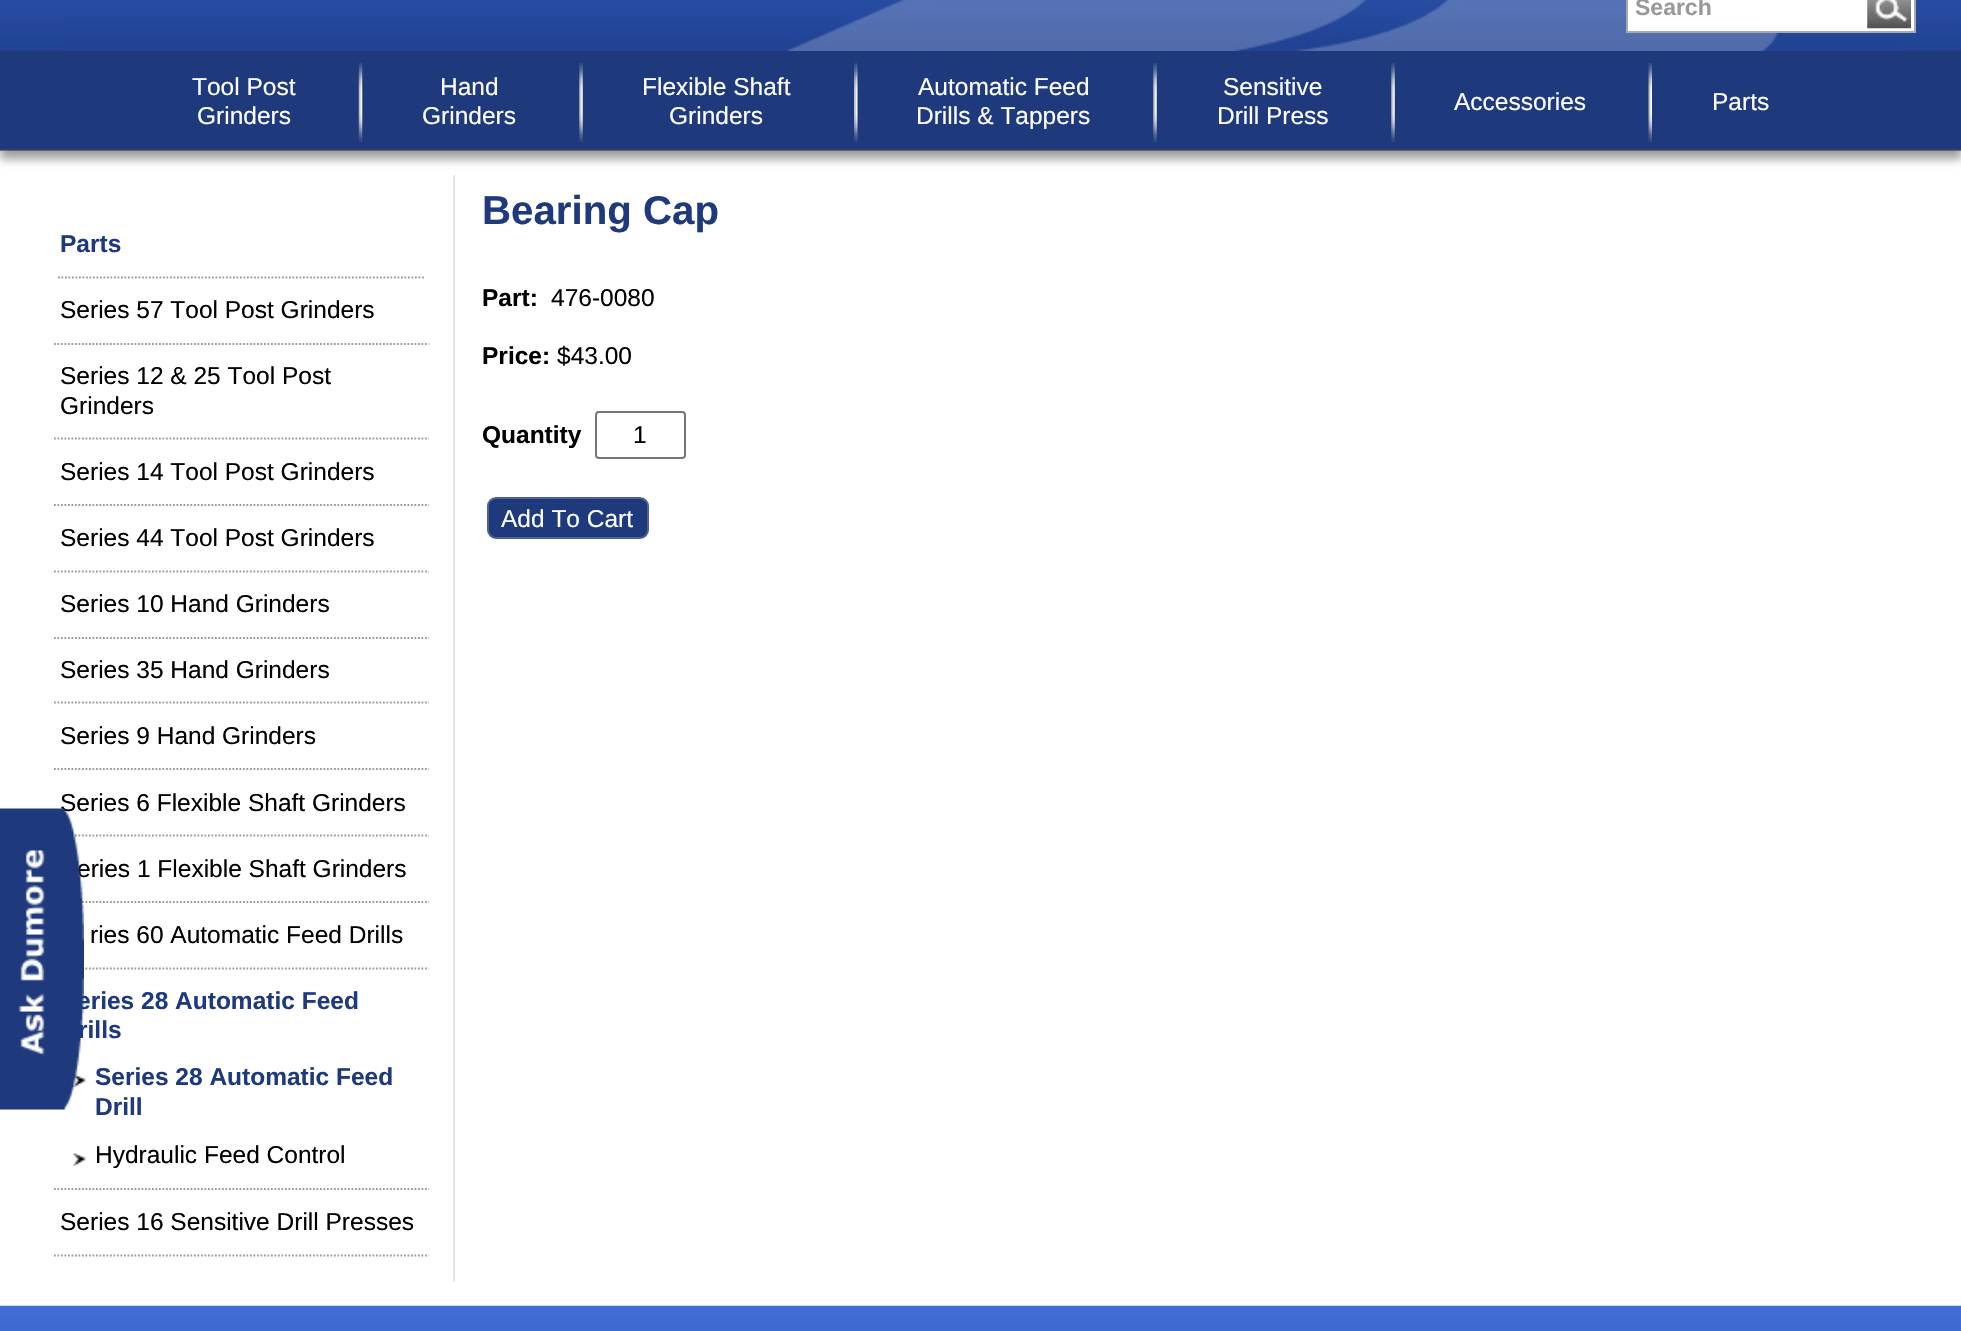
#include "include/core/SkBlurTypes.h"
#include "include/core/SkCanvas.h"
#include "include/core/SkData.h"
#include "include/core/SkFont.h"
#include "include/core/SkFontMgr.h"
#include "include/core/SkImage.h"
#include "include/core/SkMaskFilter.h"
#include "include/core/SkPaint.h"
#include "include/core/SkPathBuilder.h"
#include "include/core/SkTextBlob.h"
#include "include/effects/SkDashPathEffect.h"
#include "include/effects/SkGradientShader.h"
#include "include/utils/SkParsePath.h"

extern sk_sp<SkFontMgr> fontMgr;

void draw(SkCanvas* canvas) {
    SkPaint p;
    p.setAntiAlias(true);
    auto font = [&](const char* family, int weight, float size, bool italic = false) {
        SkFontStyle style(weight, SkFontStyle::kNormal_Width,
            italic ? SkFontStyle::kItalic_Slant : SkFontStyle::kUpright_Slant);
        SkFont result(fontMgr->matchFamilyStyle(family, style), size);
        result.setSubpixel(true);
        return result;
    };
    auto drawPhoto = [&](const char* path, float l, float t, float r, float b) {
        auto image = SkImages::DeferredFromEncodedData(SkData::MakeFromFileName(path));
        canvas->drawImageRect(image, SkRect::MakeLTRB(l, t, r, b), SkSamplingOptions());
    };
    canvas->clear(0xFFFFFFFF);
    p.setStyle(SkPaint::kStroke_Style);
    p.setStrokeWidth(1.8f);
    p.setColor(0xFF999999);
    p.setPathEffect(SkDashPathEffect::Make({{1.75f, 1.75f}}, 0));
    canvas->drawPath(SkPathBuilder().moveTo(54, 835.5f).lineTo(429, 835.5f).detach(), p);
    p.setPathEffect(nullptr);
    auto font1 = font("Liberation Sans", 400, 24.5f);
    p.setStyle(SkPaint::kFill_Style);
    p.setColor(0xFF000000);
    canvas->drawString("Series 6 Flexible Shaft Grinders", 60, 811, font1, p);
    p.setStyle(SkPaint::kStroke_Style);
    p.setColor(0xFF999999);
    p.setPathEffect(SkDashPathEffect::Make({{1.75f, 1.75f}}, 0));
    canvas->drawPath(SkPathBuilder().moveTo(54, 902).lineTo(429, 902).detach(), p);
    p.setPathEffect(nullptr);
    p.setStyle(SkPaint::kFill_Style);
    p.setColor(0xFF000000);
    canvas->drawString("eries 1 Flexible Shaft Grinders", 77, 877, font1, p);
    p.setStyle(SkPaint::kStroke_Style);
    p.setColor(0xFF999999);
    p.setPathEffect(SkDashPathEffect::Make({{1.75f, 1.75f}}, 0));
    canvas->drawPath(SkPathBuilder().moveTo(54, 968.5f).lineTo(429, 968.5f).detach(), p);
    p.setPathEffect(nullptr);
    auto font2 = font("Liberation Sans", 700, 24.5f);
    p.setStyle(SkPaint::kFill_Style);
    p.setColor(0xFF1E3A7D);
    canvas->drawString("eries 28 Automatic Feed", 77, 1009, font2, p);
    canvas->drawString("rills", 78, 1038, font2, p);
    drawPhoto("media/10.png", 73, 1074, 86, 1087);
    drawPhoto("media/1.png", 0, 808, 84, 1110);
    drawPhoto("media/2.png", 0, 0, 1961, 151);
    drawPhoto("media/3.png", 65, 0, 1899, 51);
    p.setColor(0xFFFFFFFF);
    canvas->drawRect(SkRect::MakeLTRB(1627, -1, 1915, 32), p);
    p.setStyle(SkPaint::kStroke_Style);
    p.setStrokeWidth(2);
    p.setColor(0xFFAAAAAA);
    canvas->drawRect(SkRect::MakeLTRB(1627, -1, 1915, 32), p);
    auto font3 = font("Liberation Sans", 700, 23);
    p.setStyle(SkPaint::kFill_Style);
    p.setColor(0xFF999999);
    canvas->drawString("Search", 1635, 15, font3, p);
    drawPhoto("media/4.png", 1867, 0, 1911, 29);
    p.setColor(0x8C4D4C4D);
    p.setMaskFilter(SkMaskFilter::MakeBlur(kNormal_SkBlurStyle, 4.5f));
    canvas->drawRect(SkRect::MakeLTRB(0, 61, 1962, 159), p);
    p.setMaskFilter(nullptr);
    p.setColor(0xFF1E397C);
    canvas->drawRect(SkRect::MakeLTRB(0, 51, 1961, 149), p);
    p.setColor(0xFFFFFFFF);
    canvas->drawString("Tool Post", 192, 95, font1, p);
    canvas->drawString("Grinders", 197, 124, font1, p);
    drawPhoto("media/5.png", 358, 63, 363, 142);
    canvas->drawString("Hand", 440, 95, font1, p);
    canvas->drawString("Grinders", 422, 124, font1, p);
    drawPhoto("media/6.png", 579, 63, 583, 142);
    canvas->drawString("Flexible Shaft", 642, 95, font1, p);
    canvas->drawString("Grinders", 669, 124, font1, p);
    drawPhoto("media/7.png", 854, 63, 858, 142);
    canvas->drawString("Automatic Feed", 918, 95, font1, p);
    canvas->drawString("Drills & Tappers", 916, 124, font1, p);
    drawPhoto("media/6.png", 1153, 63, 1157, 142);
    canvas->drawString("Sensitive", 1223, 95, font1, p);
    canvas->drawString("Drill Press", 1217, 124, font1, p);
    drawPhoto("media/6.png", 1391, 63, 1395, 142);
    canvas->drawString("Accessories", 1454, 110, font1, p);
    drawPhoto("media/8.png", 1648, 63, 1652, 142);
    canvas->drawString("Parts", 1712, 110, font1, p);
    drawPhoto("media/9.png", 453, 175, 455, 1282);
    p.setStyle(SkPaint::kStroke_Style);
    p.setStrokeWidth(1.8f);
    p.setColor(0xFF999999);
    p.setPathEffect(SkDashPathEffect::Make({{1.75f, 1.75f}}, 0));
    canvas->drawPath(SkPathBuilder().moveTo(58, 277.5f).lineTo(425, 277.5f).detach(), p);
    p.setPathEffect(nullptr);
    p.setStyle(SkPaint::kFill_Style);
    p.setColor(0xFF1E3A7D);
    canvas->drawString("Parts", 60, 252, font2, p);
    p.setStyle(SkPaint::kStroke_Style);
    p.setColor(0xFF999999);
    p.setPathEffect(SkDashPathEffect::Make({{1.75f, 1.75f}}, 0));
    canvas->drawPath(SkPathBuilder().moveTo(54, 344).lineTo(429, 344).detach(), p);
    p.setPathEffect(nullptr);
    p.setStyle(SkPaint::kFill_Style);
    p.setColor(0xFF000000);
    canvas->drawString("Series 57 Tool Post Grinders", 60, 318, font1, p);
    p.setStyle(SkPaint::kStroke_Style);
    p.setColor(0xFF999999);
    p.setPathEffect(SkDashPathEffect::Make({{1.75f, 1.75f}}, 0));
    canvas->drawPath(SkPathBuilder().moveTo(54, 438.5f).lineTo(429, 438.5f).detach(), p);
    p.setPathEffect(nullptr);
    p.setStyle(SkPaint::kFill_Style);
    p.setColor(0xFF000000);
    canvas->drawString("Series 12 & 25 Tool Post", 60, 384, font1, p);
    canvas->drawString("Grinders", 60, 414, font1, p);
    p.setStyle(SkPaint::kStroke_Style);
    p.setColor(0xFF999999);
    p.setPathEffect(SkDashPathEffect::Make({{1.75f, 1.75f}}, 0));
    canvas->drawPath(SkPathBuilder().moveTo(54, 505).lineTo(429, 505).detach(), p);
    p.setPathEffect(nullptr);
    p.setStyle(SkPaint::kFill_Style);
    p.setColor(0xFF000000);
    canvas->drawString("Series 14 Tool Post Grinders", 60, 480, font1, p);
    p.setStyle(SkPaint::kStroke_Style);
    p.setColor(0xFF999999);
    p.setPathEffect(SkDashPathEffect::Make({{1.75f, 1.75f}}, 0));
    canvas->drawPath(SkPathBuilder().moveTo(54, 571.5f).lineTo(429, 571.5f).detach(), p);
    p.setPathEffect(nullptr);
    p.setStyle(SkPaint::kFill_Style);
    p.setColor(0xFF000000);
    canvas->drawString("Series 44 Tool Post Grinders", 60, 546, font1, p);
    p.setStyle(SkPaint::kStroke_Style);
    p.setColor(0xFF999999);
    p.setPathEffect(SkDashPathEffect::Make({{1.75f, 1.75f}}, 0));
    canvas->drawPath(SkPathBuilder().moveTo(54, 638).lineTo(429, 638).detach(), p);
    p.setPathEffect(nullptr);
    p.setStyle(SkPaint::kFill_Style);
    p.setColor(0xFF000000);
    canvas->drawString("Series 10 Hand Grinders", 60, 612, font1, p);
    p.setStyle(SkPaint::kStroke_Style);
    p.setColor(0xFF999999);
    p.setPathEffect(SkDashPathEffect::Make({{1.75f, 1.75f}}, 0));
    canvas->drawPath(SkPathBuilder().moveTo(54, 702.5f).lineTo(429, 702.5f).detach(), p);
    p.setPathEffect(nullptr);
    p.setStyle(SkPaint::kFill_Style);
    p.setColor(0xFF000000);
    canvas->drawString("Series 35 Hand Grinders", 60, 678, font1, p);
    p.setStyle(SkPaint::kStroke_Style);
    p.setColor(0xFF999999);
    p.setPathEffect(SkDashPathEffect::Make({{1.75f, 1.75f}}, 0));
    canvas->drawPath(SkPathBuilder().moveTo(54, 769).lineTo(429, 769).detach(), p);
    p.setPathEffect(nullptr);
    p.setStyle(SkPaint::kFill_Style);
    p.setColor(0xFF000000);
    canvas->drawString("Series 9 Hand Grinders", 60, 744, font1, p);
    canvas->drawString("ries 60 Automatic Feed Drills", 90, 943, font1, p);
    p.setStyle(SkPaint::kStroke_Style);
    p.setColor(0xFF999999);
    p.setPathEffect(SkDashPathEffect::Make({{1.75f, 1.75f}}, 0));
    canvas->drawPath(SkPathBuilder().moveTo(54, 1189).lineTo(429, 1189).detach(), p);
    p.setPathEffect(nullptr);
    p.setStyle(SkPaint::kFill_Style);
    p.setColor(0xFF1E3A7D);
    canvas->drawString("Series 28 Automatic Feed", 95, 1085, font2, p);
    canvas->drawString("Drill", 95, 1115, font2, p);
    drawPhoto("media/11.png", 73, 1153, 86, 1166);
    p.setColor(0xFF000000);
    canvas->drawString("Hydraulic Feed Control", 95, 1163, font1, p);
    p.setStyle(SkPaint::kStroke_Style);
    p.setColor(0xFF999999);
    p.setPathEffect(SkDashPathEffect::Make({{1.75f, 1.75f}}, 0));
    canvas->drawPath(SkPathBuilder().moveTo(54, 1255.5f).lineTo(429, 1255.5f).detach(), p);
    p.setPathEffect(nullptr);
    p.setStyle(SkPaint::kFill_Style);
    p.setColor(0xFF000000);
    canvas->drawString("Series 16 Sensitive Drill Presses", 60, 1230, font1, p);
    auto font4 = font("Liberation Sans", 700, 40.25f);
    p.setColor(0xFF1E3A7D);
    canvas->drawString("Bearing Cap", 482, 224, font4, p);
    p.setColor(0xFF000000);
    canvas->drawString("Part:", 482, 306, font2, p);
    canvas->drawString("476-0080", 551, 306, font1, p);
    canvas->drawString("Price:", 482, 364, font2, p);
    canvas->drawString("$43.00", 557, 364, font1, p);
    canvas->drawString("Quantity", 482, 443, font2, p);
    p.setStyle(SkPaint::kStroke_Style);
    p.setStrokeWidth(2);
    p.setColor(0xFF767676);
    canvas->drawRoundRect(SkRect::MakeLTRB(596, 412, 685, 458), 3, 3, p);
    p.setStyle(SkPaint::kFill_Style);
    p.setColor(0xFF000000);
    canvas->drawString("1", 633, 443, font1, p);
    p.setColor(0xFF1E397C);
    canvas->drawRoundRect(SkRect::MakeLTRB(488, 498, 648, 538), 8, 8, p);
    p.setStyle(SkPaint::kStroke_Style);
    p.setColor(0xFF4E6096);
    canvas->drawRoundRect(SkRect::MakeLTRB(488, 498, 648, 538), 8, 8, p);
    p.setStyle(SkPaint::kFill_Style);
    p.setColor(0xFFFFFFFF);
    canvas->drawString("Add To Cart", 501, 527, font1, p);
    drawPhoto("media/12.png", 0, 1305, 1961, 1331);
}
